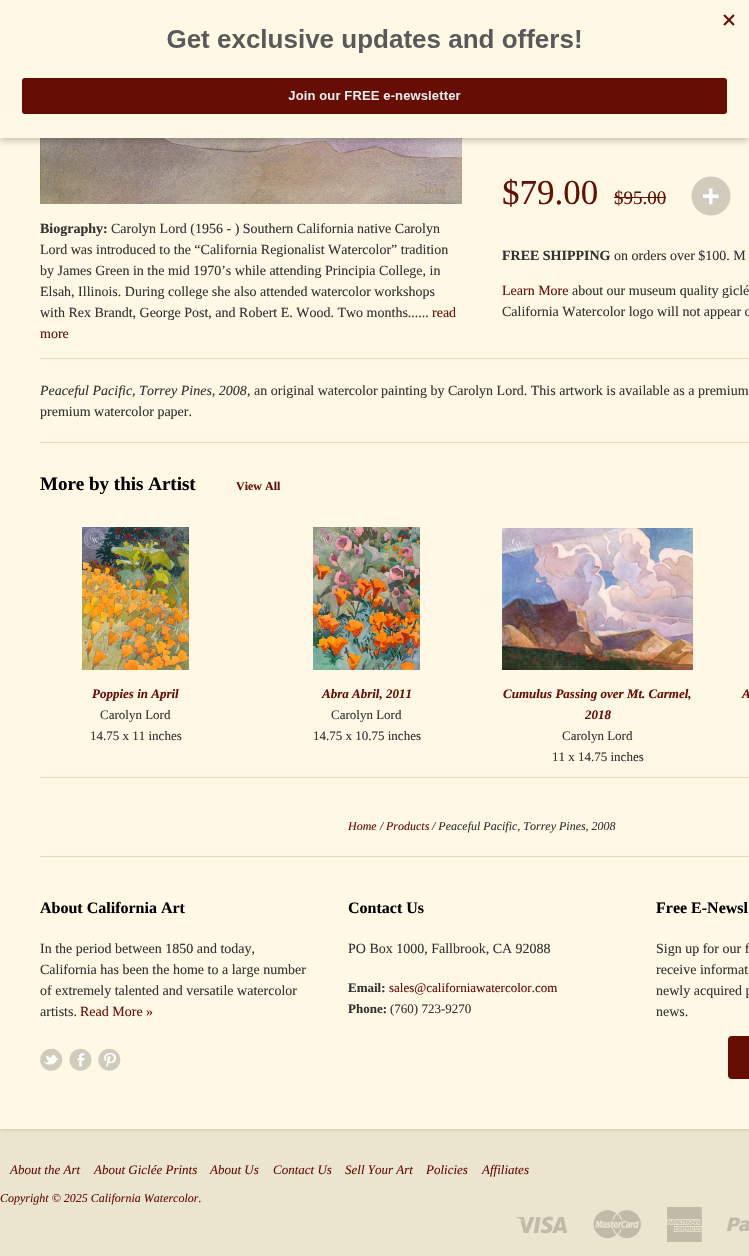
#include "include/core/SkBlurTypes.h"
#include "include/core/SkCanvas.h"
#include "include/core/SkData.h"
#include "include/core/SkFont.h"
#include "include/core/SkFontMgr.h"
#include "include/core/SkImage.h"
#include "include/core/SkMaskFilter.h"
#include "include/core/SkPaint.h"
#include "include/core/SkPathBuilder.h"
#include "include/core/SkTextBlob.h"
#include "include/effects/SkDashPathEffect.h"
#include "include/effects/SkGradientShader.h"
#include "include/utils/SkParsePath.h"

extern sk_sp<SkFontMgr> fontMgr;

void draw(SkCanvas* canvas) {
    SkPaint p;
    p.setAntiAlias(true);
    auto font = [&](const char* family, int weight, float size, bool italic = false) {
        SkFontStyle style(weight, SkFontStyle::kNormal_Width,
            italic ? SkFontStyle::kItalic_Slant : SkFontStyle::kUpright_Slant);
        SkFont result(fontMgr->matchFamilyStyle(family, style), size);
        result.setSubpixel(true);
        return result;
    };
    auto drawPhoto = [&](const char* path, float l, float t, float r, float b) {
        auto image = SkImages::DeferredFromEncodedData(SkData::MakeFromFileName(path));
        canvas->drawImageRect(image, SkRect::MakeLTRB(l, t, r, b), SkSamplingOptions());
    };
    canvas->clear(0xFFEBE4CE);
    p.setColor(0x33000000);
    p.setMaskFilter(SkMaskFilter::MakeBlur(kNormal_SkBlurStyle, 2));
    canvas->drawRect(SkRect::MakeLTRB(0, -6, 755, 1129), p);
    p.setMaskFilter(nullptr);
    p.setColor(0xFFFFF8E5);
    canvas->drawRect(SkRect::MakeLTRB(0, 138, 749, 1129), p);
    drawPhoto("media/2.png", 40, 138, 462, 204);
    p.setColor(0x33000000);
    p.setMaskFilter(SkMaskFilter::MakeBlur(kNormal_SkBlurStyle, 3));
    canvas->drawRect(SkRect::MakeLTRB(0, 3, 749, 141), p);
    p.setMaskFilter(nullptr);
    drawPhoto("media/1.png", 0, 0, 749, 138);
    auto font1 = font("Liberation Serif", 700, 14);
    p.setColor(0xFF333333);
    canvas->drawString("Biography:", 40, 233, font1, p);
    auto font2 = font("Liberation Serif", 400, 14);
    {
        const struct { const char* s; float x, y; } items[] = {
            {"Carolyn Lord (1956 - ) Southern California native Carolyn", 111, 233},
            {"Lord was introduced to the “California Regionalist Watercolor” tradition", 40, 254},
            {"by James Green in the mid 1970’s while attending Principia College, in", 40, 275},
            {"Elsah, Illinois. During college she also attended watercolor workshops", 40, 296},
            {"with Rex Brandt, George Post, and Robert E. Wood. Two months......", 40, 317},
        };
        for (auto [s, x, y] : items) {
            canvas->drawString(s, x, y, font2, p);
        }
    }
    p.setColor(0xFF660E04);
    canvas->drawString("read", 432, 317, font2, p);
    canvas->drawString("more", 40, 338, font2, p);
    auto font3 = font("Liberation Serif", 400, 35);
    canvas->drawString("$79.00", 502, 204, font3, p);
    auto font4 = font("Liberation Serif", 400, 19);
    canvas->drawString("$95.00", 614, 204, font4, p);
    canvas->drawRect(SkRect::MakeLTRB(614, 197, 666, 198), p);
    drawPhoto("media/3.png", 691, 176, 731, 216);
    p.setColor(0xFF333333);
    canvas->drawString("FREE SHIPPING", 502, 260, font1, p);
    canvas->drawString("on orders over $100. M", 614, 260, font2, p);
    p.setColor(0xFF660E04);
    canvas->drawString("Learn More", 502, 295, font2, p);
    p.setColor(0xFF333333);
    canvas->drawString("about our museum quality giclé", 572, 295, font2, p);
    canvas->drawString("California Watercolor logo will not appear o", 502, 316, font2, p);
    p.setColor(0xFFE3DAC1);
    canvas->drawRect(SkRect::MakeLTRB(40, 358, 749, 359), p);
    auto font5 = font("Liberation Serif", 400, 14, true);
    p.setColor(0xFF333333);
    canvas->drawString("Peaceful Pacific, Torrey Pines, 2008", 40, 395, font5, p);
    canvas->drawString(", an original watercolor painting by Carolyn Lord. This artwork is available as a premium", 247, 395, font2, p);
    canvas->drawString("premium watercolor paper.", 40, 416, font2, p);
    p.setColor(0xFFE3DAC1);
    canvas->drawRect(SkRect::MakeLTRB(40, 442, 749, 443), p);
    auto font6 = font("Liberation Serif", 700, 19);
    p.setColor(0xFF000000);
    canvas->drawString("More by this Artist", 40, 490, font6, p);
    auto font7 = font("Liberation Serif", 700, 12);
    p.setColor(0xFF660E04);
    canvas->drawString("View All", 236, 490, font7, p);
    drawPhoto("media/4.png", 82, 527, 189, 670);
    auto font8 = font("Liberation Serif", 700, 13, true);
    canvas->drawString("Poppies in April", 92, 698, font8, p);
    auto font9 = font("Liberation Serif", 400, 13);
    p.setColor(0xFF333333);
    canvas->drawString("Carolyn Lord", 100, 719, font9, p);
    canvas->drawString("14.75 x 11 inches", 90, 740, font9, p);
    drawPhoto("media/5.png", 313, 527, 420, 670);
    p.setColor(0xFF660E04);
    canvas->drawString("Abra Abril, 2011", 322, 698, font8, p);
    p.setColor(0xFF333333);
    canvas->drawString("Carolyn Lord", 331, 719, font9, p);
    canvas->drawString("14.75 x 10.75 inches", 313, 740, font9, p);
    drawPhoto("media/6.png", 502, 528, 693, 670);
    p.setColor(0xFF660E04);
    canvas->drawString("Cumulus Passing over Mt. Carmel,", 503, 698, font8, p);
    canvas->drawString("2018", 585, 719, font8, p);
    p.setColor(0xFF333333);
    canvas->drawString("Carolyn Lord", 562, 740, font9, p);
    canvas->drawString("11 x 14.75 inches", 552, 761, font9, p);
    p.setColor(0xFF660E04);
    canvas->drawString("A", 742, 698, font8, p);
    p.setColor(0xFFE3DAC1);
    canvas->drawRect(SkRect::MakeLTRB(40, 777, 749, 778), p);
    auto font10 = font("Liberation Serif", 400, 12, true);
    p.setColor(0xFF660E04);
    canvas->drawString("Home", 348, 830, font10, p);
    p.setColor(0xFF333333);
    canvas->drawString("/", 380, 830, font10, p);
    p.setColor(0xFF660E04);
    canvas->drawString("Products", 386, 830, font10, p);
    p.setColor(0xFF333333);
    canvas->drawString("/ Peaceful Pacific, Torrey Pines, 2008", 432, 830, font10, p);
    p.setColor(0xFFE3DAC1);
    canvas->drawRect(SkRect::MakeLTRB(40, 856, 749, 857), p);
    auto font11 = font("Liberation Serif", 700, 16);
    p.setColor(0xFF000000);
    canvas->drawString("About California Art", 40, 913, font11, p);
    p.setColor(0xFF333333);
    {
        const struct { const char* s; float x, y; } items[] = {
            {"In the period between 1850 and today,", 40, 953},
            {"California has been the home to a large number", 40, 974},
            {"of extremely talented and versatile watercolor", 40, 995},
            {"artists.", 40, 1016},
        };
        for (auto [s, x, y] : items) {
            canvas->drawString(s, x, y, font2, p);
        }
    }
    p.setColor(0xFF660E04);
    canvas->drawString("Read More »", 80, 1016, font2, p);
    drawPhoto("media/7.png", 40, 1048, 63, 1071);
    drawPhoto("media/8.png", 69, 1048, 92, 1071);
    drawPhoto("media/9.png", 98, 1048, 121, 1071);
    p.setColor(0xFF000000);
    canvas->drawString("Contact Us", 348, 913, font11, p);
    p.setColor(0xFF333333);
    canvas->drawString("PO Box 1000, Fallbrook, CA 92088", 348, 953, font2, p);
    auto font12 = font("Liberation Serif", 700, 13);
    canvas->drawString("Email:", 348, 992, font12, p);
    p.setColor(0xFF660E04);
    canvas->drawString("sales@californiawatercolor.com", 389, 992, font9, p);
    p.setColor(0xFF333333);
    canvas->drawString("Phone:", 348, 1013, font12, p);
    canvas->drawString("(760) 723-9270", 390, 1013, font9, p);
    p.setColor(0xFF000000);
    canvas->drawString("Free E-Newsl", 656, 913, font11, p);
    p.setColor(0xFF333333);
    {
        const struct { const char* s; float x, y; } items[] = {
            {"Sign up for our f", 656, 953},
            {"receive informat", 656, 974},
            {"newly acquired p", 656, 995},
            {"news.", 656, 1016},
        };
        for (auto [s, x, y] : items) {
            canvas->drawString(s, x, y, font2, p);
        }
    }
    p.setColor(0xFF660E04);
    canvas->drawRoundRect(SkRect::MakeLTRB(728, 1036, 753, 1079), 4, 4, p);
    auto font13 = font("Liberation Serif", 400, 13, true);
    {
        const struct { const char* s; float x, y; } items[] = {
            {"About the Art", 10, 1174},
            {"About Giclée Prints", 94, 1174},
            {"About Us", 210, 1174},
            {"Contact Us", 273, 1174},
            {"Sell Your Art", 345, 1174},
            {"Policies", 426, 1174},
            {"Affiliates", 482, 1174},
        };
        for (auto [s, x, y] : items) {
            canvas->drawString(s, x, y, font13, p);
        }
    }
    canvas->drawString("Copyright © 2025 California Watercolor.", 0, 1202, font10, p);
    drawPhoto("media/10.png", 516, 1216, 567, 1234);
    drawPhoto("media/11.png", 593, 1210, 641, 1239);
    drawPhoto("media/12.png", 667, 1207, 702, 1242);
    drawPhoto("media/13.png", 727, 1217, 749, 1232);
}
